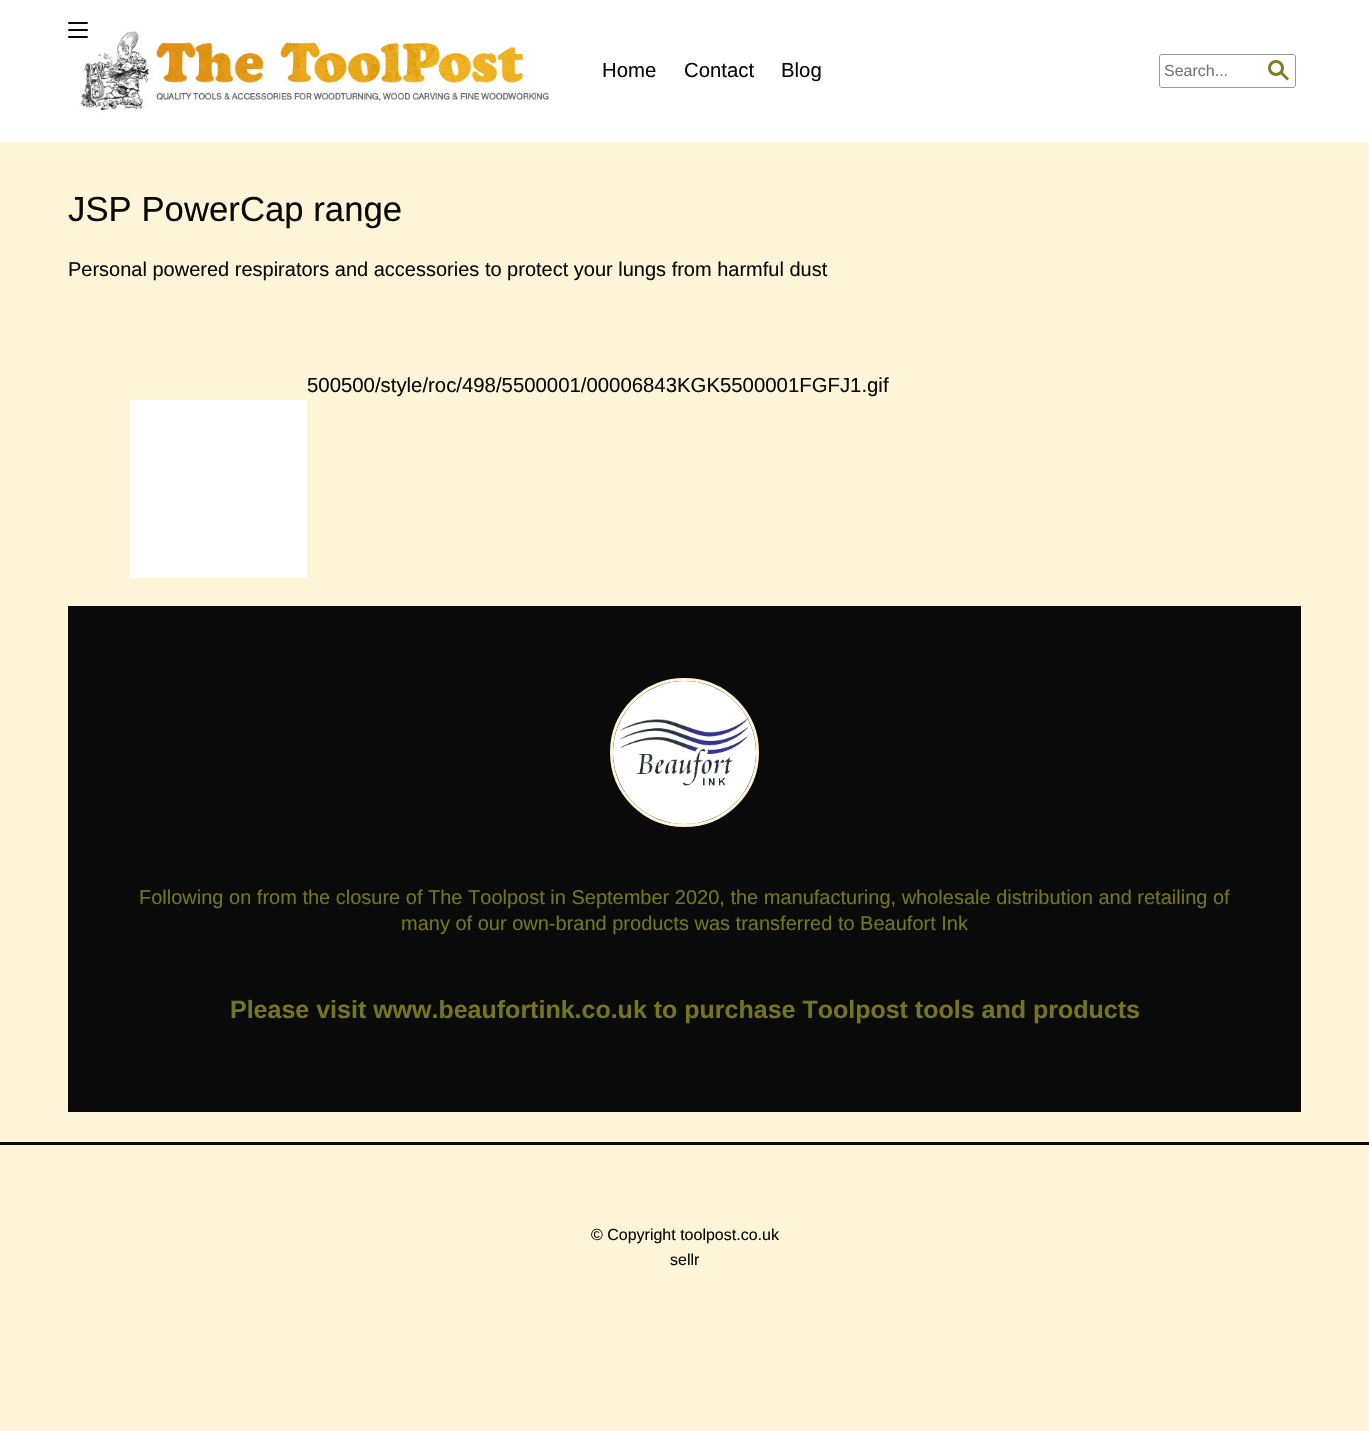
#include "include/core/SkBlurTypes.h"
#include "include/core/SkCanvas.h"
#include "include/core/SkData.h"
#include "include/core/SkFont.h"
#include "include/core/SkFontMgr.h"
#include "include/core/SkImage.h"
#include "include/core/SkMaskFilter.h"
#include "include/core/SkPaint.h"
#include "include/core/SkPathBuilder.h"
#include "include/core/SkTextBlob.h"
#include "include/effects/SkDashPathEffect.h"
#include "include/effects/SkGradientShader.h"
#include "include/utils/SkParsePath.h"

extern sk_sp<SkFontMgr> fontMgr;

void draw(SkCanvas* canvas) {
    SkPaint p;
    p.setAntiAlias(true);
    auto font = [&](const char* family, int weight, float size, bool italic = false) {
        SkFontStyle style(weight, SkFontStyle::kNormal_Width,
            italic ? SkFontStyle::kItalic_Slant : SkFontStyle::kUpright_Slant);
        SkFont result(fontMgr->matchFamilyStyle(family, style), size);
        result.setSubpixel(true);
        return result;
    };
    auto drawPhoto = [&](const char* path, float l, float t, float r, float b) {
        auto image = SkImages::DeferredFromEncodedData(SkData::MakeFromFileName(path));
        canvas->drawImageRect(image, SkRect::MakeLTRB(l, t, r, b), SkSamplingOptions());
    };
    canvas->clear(0xFFFEF5D8);
    p.setColor(0xFFFFFFFF);
    canvas->drawRect(SkRect::MakeLTRB(0, 0, 1369, 142), p);
    p.setColor(0xFF0A0A0A);
    canvas->drawRoundRect(SkRect::MakeLTRB(68, 22, 88, 24), 1, 1, p);
    drawPhoto("media/1.png", 79, 29, 552, 113);
    canvas->drawRoundRect(SkRect::MakeLTRB(68, 29, 88, 31), 1, 1, p);
    canvas->drawRoundRect(SkRect::MakeLTRB(68, 36, 88, 38), 1, 1, p);
    auto font1 = font("Liberation Sans", 400, 20.35f);
    {
        const struct { const char* s; float x, y; } items[] = {
            {"Home", 602, 77},
            {"Contact", 684, 77},
            {"Blog", 781, 77},
        };
        for (auto [s, x, y] : items) {
            canvas->drawString(s, x, y, font1, p);
        }
    }
    p.setStyle(SkPaint::kStroke_Style);
    p.setStrokeWidth(1);
    p.setColor(0xFF999999);
    canvas->drawRoundRect(SkRect::MakeLTRB(1159.5f, 54.5f, 1295.5f, 87.5f), 2.5f, 2.5f, p);
    p.setStyle(SkPaint::kFill_Style);
    p.setColor(0xFFFFFFFF);
    canvas->drawRoundRect(SkRect::MakeLTRB(1160, 55, 1295, 87), 3, 3, p);
    auto font2 = font("Liberation Sans", 400, 16);
    p.setColor(0xFF757575);
    canvas->drawString("Search...", 1164, 76, font2, p);
    p.setStyle(SkPaint::kStroke_Style);
    p.setStrokeWidth(3);
    p.setColor(0xFF7F7F29);
    canvas->drawCircle(1276, 68, 6.5f, p);
    p.setStyle(SkPaint::kFill_Style);
    canvas->drawPath(SkPathBuilder().moveTo(1282, 71.5f).lineTo(1289, 78.5f).lineTo(1287, 80.5f).lineTo(1280, 73.5f).close().detach(), p);
    auto font3 = font("Liberation Sans", 400, 34.75f);
    p.setColor(0xFF0A0A0A);
    canvas->drawString("JSP PowerCap range", 68, 221, font3, p);
    auto font4 = font("Liberation Sans", 400, 20);
    canvas->drawString("Personal powered respirators and accessories to protect your lungs from harmful dust", 68, 276, font4, p);
    canvas->drawString("500500/style/roc/498/5500001/00006843KGK5500001FGFJ1.gif", 307, 392, font1, p);
    p.setColor(0xFFFFFFFF);
    canvas->drawRect(SkRect::MakeLTRB(130, 400, 307, 578), p);
    p.setColor(0xFF0A0A0A);
    canvas->drawRect(SkRect::MakeLTRB(68, 606, 1301, 1112), p);
    p.setStyle(SkPaint::kStroke_Style);
    p.setColor(0xFFFEF5D8);
    canvas->drawCircle(684.5f, 752.5f, 73, p);
    drawPhoto("media/2.png", 613, 681, 756, 824);
    p.setStyle(SkPaint::kFill_Style);
    p.setColor(0xFF75751F);
    canvas->drawString("Following on from the closure of The Toolpost in September 2020, the manufacturing, wholesale distribution and retailing of", 139, 904, font4, p);
    canvas->drawString("many of our own-brand products was transferred to Beaufort Ink", 401, 930, font4, p);
    auto font5 = font("Liberation Sans", 700, 25);
    canvas->drawString("Please visit www.beaufortink.co.uk to purchase Toolpost tools and products", 230, 1018, font5, p);
    p.setColor(0xFF0A0A0A);
    canvas->drawRect(SkRect::MakeLTRB(0, 1142, 1369, 1145), p);
    canvas->drawString("© Copyright toolpost.co.uk", 591, 1240, font2, p);
    canvas->drawString("sellr", 670, 1265, font2, p);
}
